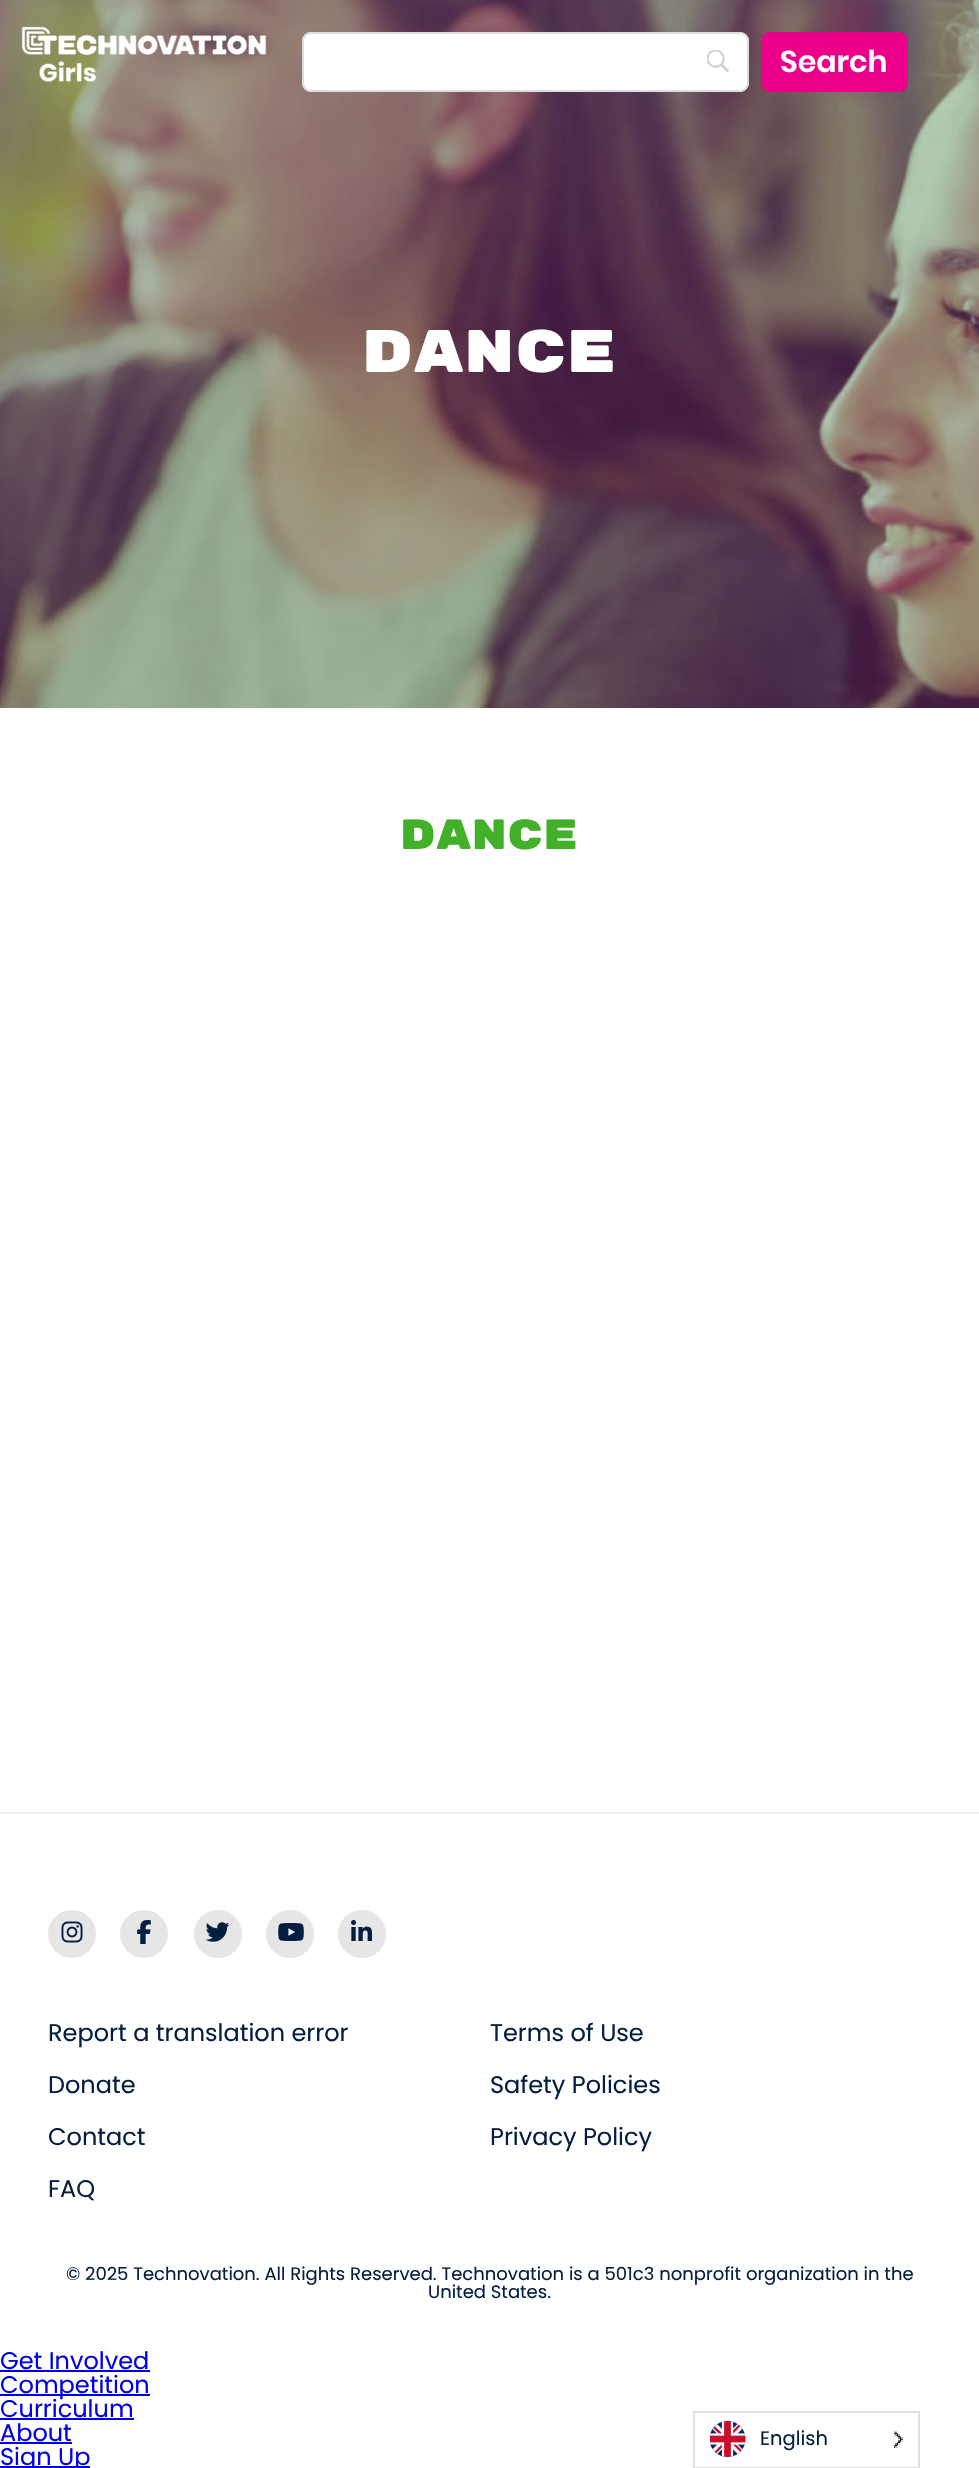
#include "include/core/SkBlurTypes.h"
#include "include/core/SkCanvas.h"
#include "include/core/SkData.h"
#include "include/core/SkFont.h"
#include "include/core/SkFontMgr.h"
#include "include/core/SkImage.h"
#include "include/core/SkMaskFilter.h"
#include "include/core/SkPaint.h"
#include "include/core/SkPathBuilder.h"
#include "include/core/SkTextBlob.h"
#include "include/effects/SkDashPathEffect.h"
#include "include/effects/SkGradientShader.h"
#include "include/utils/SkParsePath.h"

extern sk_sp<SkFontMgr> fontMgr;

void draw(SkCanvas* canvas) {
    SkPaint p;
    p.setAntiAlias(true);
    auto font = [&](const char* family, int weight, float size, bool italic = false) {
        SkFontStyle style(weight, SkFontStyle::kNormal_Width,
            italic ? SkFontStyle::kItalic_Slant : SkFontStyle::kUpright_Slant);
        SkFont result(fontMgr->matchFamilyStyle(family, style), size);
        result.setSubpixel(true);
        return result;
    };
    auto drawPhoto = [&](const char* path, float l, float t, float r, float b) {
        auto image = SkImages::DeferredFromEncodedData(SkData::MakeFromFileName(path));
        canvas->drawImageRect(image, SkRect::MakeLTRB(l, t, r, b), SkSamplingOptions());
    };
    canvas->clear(0xFFFFFFFF);
    drawPhoto("media/3.png", 0, 0, 979, 708);
    drawPhoto("media/1.png", 21, 26, 267, 82);
    p.setColor(0xFFFFFFFF);
    canvas->drawRoundRect(SkRect::MakeLTRB(302, 32, 749, 92), 9, 9, p);
    drawPhoto("media/2.png", 707, 50, 729, 72);
    p.setStyle(SkPaint::kStroke_Style);
    p.setStrokeWidth(2);
    p.setColor(0xFFDDDDDD);
    canvas->drawRoundRect(SkRect::MakeLTRB(303, 33, 748, 91), 8, 8, p);
    p.setStyle(SkPaint::kFill_Style);
    p.setColor(0xFFEC0089);
    canvas->drawRoundRect(SkRect::MakeLTRB(762, 33, 907, 91), 8, 8, p);
    p.setStyle(SkPaint::kStroke_Style);
    canvas->drawRoundRect(SkRect::MakeLTRB(762, 33, 907, 91), 8, 8, p);
    auto font1 = font("Poppins", 600, 30);
    p.setStyle(SkPaint::kFill_Style);
    p.setColor(0xFFFFFFFF);
    canvas->drawString("Search", 780, 72, font1, p);
    auto font2 = font("Rubik Mono One", 400, 60);
    canvas->drawString("dance", 362, 372, font2, p);
    auto font3 = font("Rubik Mono One", 400, 42);
    p.setColor(0xFF43B02A);
    canvas->drawString("dance", 400, 849, font3, p);
    p.setColor(0xFFF2F2F2);
    canvas->drawRect(SkRect::MakeLTRB(0, 1812, 979, 1814), p);
    p.setColor(0xFFE6E6E6);
    canvas->drawCircle(72, 1934, 24, p);
    drawPhoto("media/4.png", 61, 1921, 83, 1943);
    canvas->drawCircle(144, 1934, 24, p);
    drawPhoto("media/5.png", 137, 1920, 151, 1944);
    canvas->drawCircle(218, 1934, 24, p);
    drawPhoto("media/6.png", 205, 1922, 230, 1942);
    canvas->drawCircle(290, 1934, 24, p);
    drawPhoto("media/7.png", 278, 1923, 304, 1941);
    canvas->drawCircle(362, 1934, 24, p);
    drawPhoto("media/8.png", 351, 1920, 372, 1941);
    auto font4 = font("Poppins", 400, 24);
    p.setColor(0xFF041E42);
    {
        const struct { const char* s; float x, y; } items[] = {
            {"Report a translation error", 48, 2041},
            {"Terms of Use", 490, 2041},
            {"Donate", 48, 2093},
            {"Safety Policies", 490, 2093},
            {"Contact", 48, 2145},
            {"Privacy Policy", 490, 2145},
            {"FAQ", 48, 2197},
        };
        for (auto [s, x, y] : items) {
            canvas->drawString(s, x, y, font4, p);
        }
    }
    auto font5 = font("Poppins", 400, 18);
    canvas->drawString("© 2025 Technovation. All Rights Reserved. Technovation is a 501c3 nonprofit organization in the", 66, 2280, font5, p);
    canvas->drawString("United States.", 428, 2298, font5, p);
    p.setColor(0xFF0000EE);
    canvas->drawString("Get Involved", 0, 2369, font4, p);
    canvas->drawRect(SkRect::MakeLTRB(0, 2370, 150, 2372), p);
    canvas->drawRect(SkRect::MakeLTRB(0, 2394, 150, 2396), p);
    canvas->drawString("Competition", 0, 2393, font4, p);
    canvas->drawString("Curriculum", 0, 2417, font4, p);
    canvas->drawRect(SkRect::MakeLTRB(0, 2418, 134, 2420), p);
    canvas->drawString("About", 0, 2441, font4, p);
    canvas->drawRect(SkRect::MakeLTRB(0, 2442, 72, 2444), p);
    canvas->drawRect(SkRect::MakeLTRB(0, 2466, 90, 2468), p);
    canvas->drawString("Sign Up", 0, 2465, font4, p);
    p.setStyle(SkPaint::kStroke_Style);
    p.setColor(0xFFE0E0E0);
    canvas->drawRect(SkRect::MakeLTRB(694, 2412, 919, 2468), p);
    drawPhoto("media/9.png", 710, 2421, 746, 2457);
    auto font6 = font("Poppins", 400, 19.5f);
    p.setStyle(SkPaint::kFill_Style);
    p.setColor(0xFF041E42);
    canvas->drawString("English", 760, 2445, font6, p);
    drawPhoto("media/10.png", 894, 2431, 903, 2448);
}
